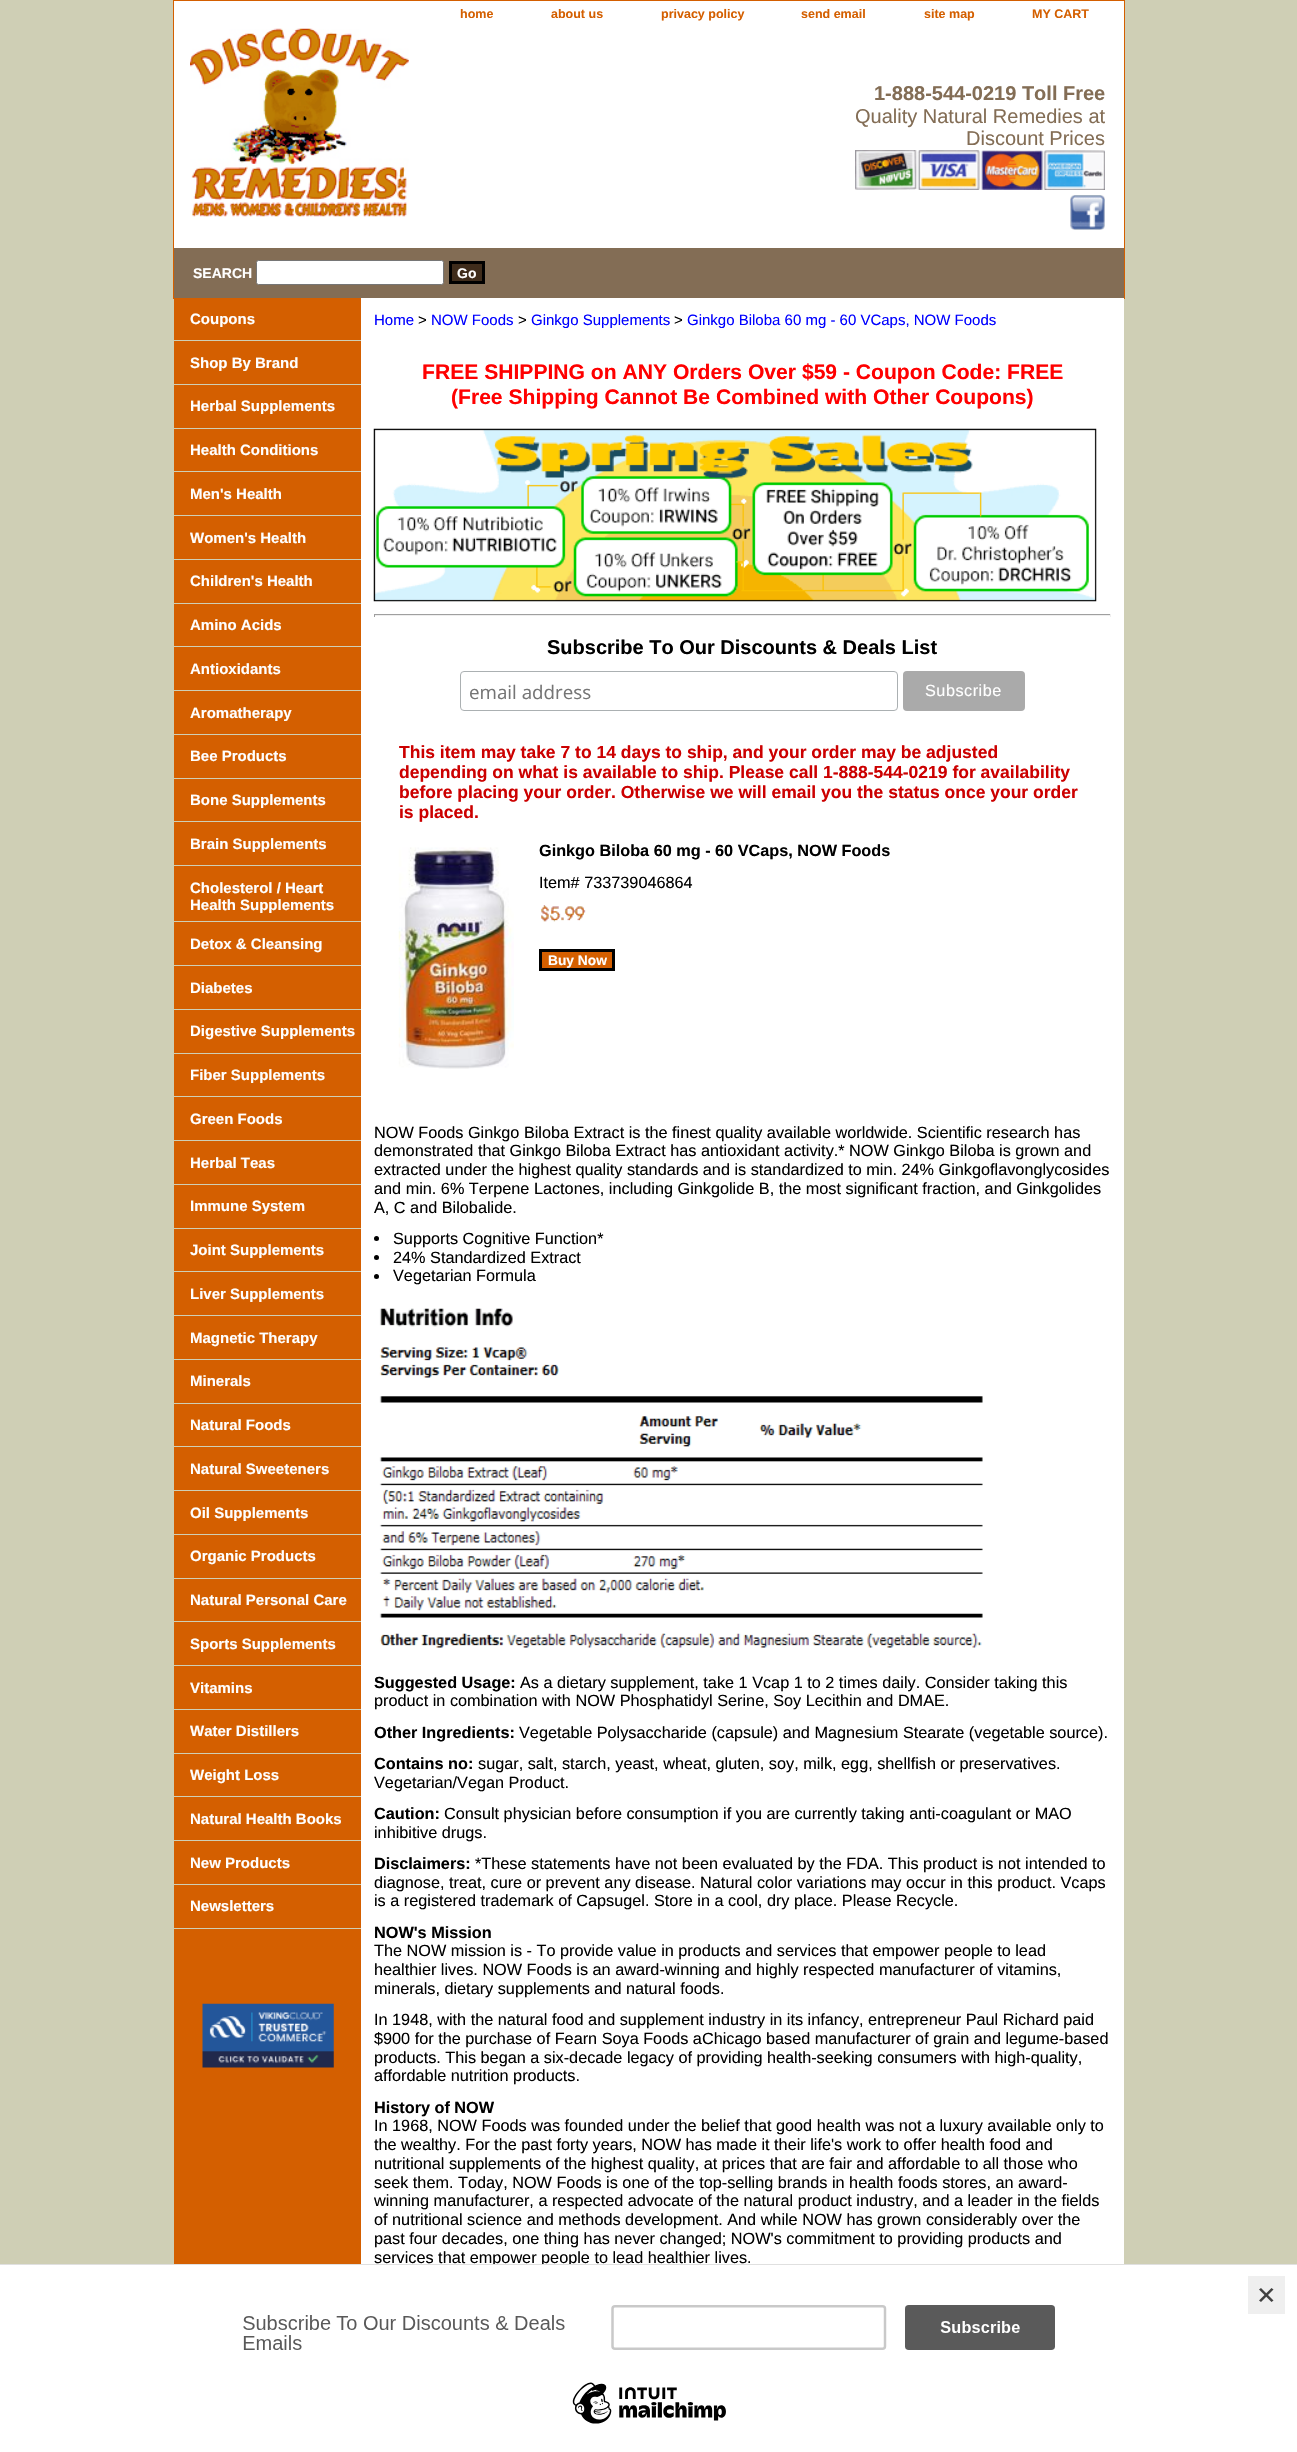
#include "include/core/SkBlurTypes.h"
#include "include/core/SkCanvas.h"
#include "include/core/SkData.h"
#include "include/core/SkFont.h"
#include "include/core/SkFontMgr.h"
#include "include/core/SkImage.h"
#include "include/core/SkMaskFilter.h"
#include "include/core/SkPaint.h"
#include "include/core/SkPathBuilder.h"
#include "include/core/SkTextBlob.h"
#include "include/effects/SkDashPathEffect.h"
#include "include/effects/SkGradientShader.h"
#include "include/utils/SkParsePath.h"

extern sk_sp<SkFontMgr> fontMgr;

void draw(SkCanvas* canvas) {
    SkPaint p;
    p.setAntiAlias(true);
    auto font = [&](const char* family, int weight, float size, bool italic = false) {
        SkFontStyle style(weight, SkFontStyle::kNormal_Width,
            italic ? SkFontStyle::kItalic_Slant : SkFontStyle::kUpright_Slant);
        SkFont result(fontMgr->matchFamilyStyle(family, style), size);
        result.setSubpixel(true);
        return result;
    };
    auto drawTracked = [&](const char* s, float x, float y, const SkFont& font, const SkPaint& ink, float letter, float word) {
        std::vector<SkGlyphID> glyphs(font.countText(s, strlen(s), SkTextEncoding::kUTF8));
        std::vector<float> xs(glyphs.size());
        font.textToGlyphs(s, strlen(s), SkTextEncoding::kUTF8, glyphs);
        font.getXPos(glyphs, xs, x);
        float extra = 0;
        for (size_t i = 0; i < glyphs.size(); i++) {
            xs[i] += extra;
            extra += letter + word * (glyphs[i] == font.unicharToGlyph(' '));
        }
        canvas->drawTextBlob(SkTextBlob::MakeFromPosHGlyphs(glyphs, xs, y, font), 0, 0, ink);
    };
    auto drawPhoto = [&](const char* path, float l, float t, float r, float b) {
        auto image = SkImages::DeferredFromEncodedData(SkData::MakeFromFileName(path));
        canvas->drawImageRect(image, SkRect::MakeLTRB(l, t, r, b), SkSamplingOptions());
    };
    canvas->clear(0xFFCFCFB5);
    p.setColor(0xFFFFFFFF);
    canvas->drawRect(SkRect::MakeLTRB(174, 1, 1124, 248), p);
    p.setStyle(SkPaint::kStroke_Style);
    p.setStrokeWidth(1);
    p.setColor(0xFFD45F00);
    canvas->drawRect(SkRect::MakeLTRB(173.5f, 0.5f, 1124.5f, 298.5f), p);
    auto font1 = font("Liberation Sans", 700, 12.5f);
    p.setStyle(SkPaint::kFill_Style);
    {
        const struct { const char* s; float x, y; } items[] = {
            {"home", 460, 18},
            {"about us", 551, 18},
            {"privacy policy", 661, 18},
            {"send email", 801, 18},
            {"site map", 924, 18},
            {"MY CART", 1032, 18},
        };
        for (auto [s, x, y] : items) {
            canvas->drawString(s, x, y, font1, p);
        }
    }
    drawPhoto("media/1.png", 190, 28, 409, 217);
    auto font2 = font("Liberation Sans", 700, 20);
    p.setColor(0xFF836D55);
    canvas->drawString("1-888-544-0219 Toll Free", 874, 100, font2, p);
    auto font3 = font("Liberation Sans", 400, 20);
    canvas->drawString("Quality Natural Remedies at", 855, 123, font3, p);
    canvas->drawString("Discount Prices", 966, 145, font3, p);
    drawPhoto("media/2.png", 855, 150, 1105, 190);
    drawPhoto("media/3.png", 1070, 195, 1105, 230);
    canvas->drawRect(SkRect::MakeLTRB(174, 248, 1124, 298), p);
    auto font4 = font("Liberation Sans", 700, 14);
    p.setColor(0xFFFFFFFF);
    canvas->drawString("SEARCH", 193, 278, font4, p);
    canvas->drawRoundRect(SkRect::MakeLTRB(256.5f, 260.5f, 443.5f, 284.5f), 2, 2, p);
    p.setStyle(SkPaint::kStroke_Style);
    p.setColor(0xFF767676);
    canvas->drawRoundRect(SkRect::MakeLTRB(256.5f, 260.5f, 443.5f, 284.5f), 2, 2, p);
    p.setStyle(SkPaint::kFill_Style);
    p.setColor(0xFF3F2C1B);
    canvas->drawRect(SkRect::MakeLTRB(450.5f, 262.5f, 483.5f, 282.5f), p);
    p.setStyle(SkPaint::kStroke_Style);
    p.setStrokeWidth(3);
    p.setColor(0xFF000000);
    canvas->drawRect(SkRect::MakeLTRB(450.5f, 262.5f, 483.5f, 282.5f), p);
    p.setStyle(SkPaint::kFill_Style);
    p.setColor(0xFFFFFFFF);
    canvas->drawString("Go", 457, 278, font4, p);
    {
        const struct { float l, t, r, b; SkColor color; } items[] = {
            {361, 298, 1124, 2264, 0xFFFFFFFF},
            {174, 299, 361, 2264, 0xFFD45F00},
            {174, 340, 361, 341, 0xFFCFCFB5},
        };
        for (auto [l, t, r, b, color] : items) {
            p.setColor(color);
            canvas->drawRect(SkRect::MakeLTRB(l, t, r, b), p);
        }
    }
    auto font5 = font("Liberation Sans", 700, 15);
    p.setColor(0xFFFFFFFF);
    canvas->drawString("Coupons", 190, 324, font5, p);
    p.setColor(0xFFCFCFB5);
    canvas->drawRect(SkRect::MakeLTRB(174, 384, 361, 385), p);
    p.setColor(0xFFFFFFFF);
    canvas->drawString("Shop By Brand", 190, 368, font5, p);
    p.setColor(0xFFCFCFB5);
    canvas->drawRect(SkRect::MakeLTRB(174, 428, 361, 429), p);
    p.setColor(0xFFFFFFFF);
    canvas->drawString("Herbal Supplements", 190, 411, font5, p);
    p.setColor(0xFFCFCFB5);
    canvas->drawRect(SkRect::MakeLTRB(174, 471, 361, 472), p);
    p.setColor(0xFFFFFFFF);
    canvas->drawString("Health Conditions", 190, 455, font5, p);
    p.setColor(0xFFCFCFB5);
    canvas->drawRect(SkRect::MakeLTRB(174, 515, 361, 516), p);
    p.setColor(0xFFFFFFFF);
    canvas->drawString("Men's Health", 190, 499, font5, p);
    p.setColor(0xFFCFCFB5);
    canvas->drawRect(SkRect::MakeLTRB(174, 559, 361, 560), p);
    p.setColor(0xFFFFFFFF);
    canvas->drawString("Women's Health", 190, 543, font5, p);
    p.setColor(0xFFCFCFB5);
    canvas->drawRect(SkRect::MakeLTRB(174, 603, 361, 604), p);
    p.setColor(0xFFFFFFFF);
    canvas->drawString("Children's Health", 190, 586, font5, p);
    p.setColor(0xFFCFCFB5);
    canvas->drawRect(SkRect::MakeLTRB(174, 646, 361, 647), p);
    p.setColor(0xFFFFFFFF);
    canvas->drawString("Amino Acids", 190, 630, font5, p);
    p.setColor(0xFFCFCFB5);
    canvas->drawRect(SkRect::MakeLTRB(174, 690, 361, 691), p);
    p.setColor(0xFFFFFFFF);
    canvas->drawString("Antioxidants", 190, 674, font5, p);
    p.setColor(0xFFCFCFB5);
    canvas->drawRect(SkRect::MakeLTRB(174, 734, 361, 735), p);
    p.setColor(0xFFFFFFFF);
    canvas->drawString("Aromatherapy", 190, 718, font5, p);
    p.setColor(0xFFCFCFB5);
    canvas->drawRect(SkRect::MakeLTRB(174, 778, 361, 779), p);
    p.setColor(0xFFFFFFFF);
    canvas->drawString("Bee Products", 190, 761, font5, p);
    p.setColor(0xFFCFCFB5);
    canvas->drawRect(SkRect::MakeLTRB(174, 821, 361, 822), p);
    p.setColor(0xFFFFFFFF);
    canvas->drawString("Bone Supplements", 190, 805, font5, p);
    p.setColor(0xFFCFCFB5);
    canvas->drawRect(SkRect::MakeLTRB(174, 865, 361, 866), p);
    p.setColor(0xFFFFFFFF);
    canvas->drawString("Brain Supplements", 190, 849, font5, p);
    p.setColor(0xFFCFCFB5);
    canvas->drawRect(SkRect::MakeLTRB(174, 921, 361, 922), p);
    p.setColor(0xFFFFFFFF);
    canvas->drawString("Cholesterol / Heart", 190, 893, font5, p);
    canvas->drawString("Health Supplements", 190, 910, font5, p);
    p.setColor(0xFFCFCFB5);
    canvas->drawRect(SkRect::MakeLTRB(174, 965, 361, 966), p);
    p.setColor(0xFFFFFFFF);
    canvas->drawString("Detox & Cleansing", 190, 949, font5, p);
    p.setColor(0xFFCFCFB5);
    canvas->drawRect(SkRect::MakeLTRB(174, 1009, 361, 1010), p);
    p.setColor(0xFFFFFFFF);
    canvas->drawString("Diabetes", 190, 993, font5, p);
    p.setColor(0xFFCFCFB5);
    canvas->drawRect(SkRect::MakeLTRB(174, 1053, 361, 1054), p);
    p.setColor(0xFFFFFFFF);
    canvas->drawString("Digestive Supplements", 190, 1036, font5, p);
    p.setColor(0xFFCFCFB5);
    canvas->drawRect(SkRect::MakeLTRB(174, 1096, 361, 1097), p);
    p.setColor(0xFFFFFFFF);
    canvas->drawString("Fiber Supplements", 190, 1080, font5, p);
    p.setColor(0xFFCFCFB5);
    canvas->drawRect(SkRect::MakeLTRB(174, 1140, 361, 1141), p);
    p.setColor(0xFFFFFFFF);
    canvas->drawString("Green Foods", 190, 1124, font5, p);
    p.setColor(0xFFCFCFB5);
    canvas->drawRect(SkRect::MakeLTRB(174, 1184, 361, 1185), p);
    p.setColor(0xFFFFFFFF);
    canvas->drawString("Herbal Teas", 190, 1168, font5, p);
    p.setColor(0xFFCFCFB5);
    canvas->drawRect(SkRect::MakeLTRB(174, 1228, 361, 1229), p);
    p.setColor(0xFFFFFFFF);
    canvas->drawString("Immune System", 190, 1211, font5, p);
    p.setColor(0xFFCFCFB5);
    canvas->drawRect(SkRect::MakeLTRB(174, 1271, 361, 1272), p);
    p.setColor(0xFFFFFFFF);
    canvas->drawString("Joint Supplements", 190, 1255, font5, p);
    p.setColor(0xFFCFCFB5);
    canvas->drawRect(SkRect::MakeLTRB(174, 1315, 361, 1316), p);
    p.setColor(0xFFFFFFFF);
    canvas->drawString("Liver Supplements", 190, 1299, font5, p);
    p.setColor(0xFFCFCFB5);
    canvas->drawRect(SkRect::MakeLTRB(174, 1359, 361, 1360), p);
    p.setColor(0xFFFFFFFF);
    canvas->drawString("Magnetic Therapy", 190, 1343, font5, p);
    p.setColor(0xFFCFCFB5);
    canvas->drawRect(SkRect::MakeLTRB(174, 1403, 361, 1404), p);
    p.setColor(0xFFFFFFFF);
    canvas->drawString("Minerals", 190, 1386, font5, p);
    p.setColor(0xFFCFCFB5);
    canvas->drawRect(SkRect::MakeLTRB(174, 1446, 361, 1447), p);
    p.setColor(0xFFFFFFFF);
    canvas->drawString("Natural Foods", 190, 1430, font5, p);
    p.setColor(0xFFCFCFB5);
    canvas->drawRect(SkRect::MakeLTRB(174, 1490, 361, 1491), p);
    p.setColor(0xFFFFFFFF);
    canvas->drawString("Natural Sweeteners", 190, 1474, font5, p);
    p.setColor(0xFFCFCFB5);
    canvas->drawRect(SkRect::MakeLTRB(174, 1534, 361, 1535), p);
    p.setColor(0xFFFFFFFF);
    canvas->drawString("Oil Supplements", 190, 1518, font5, p);
    p.setColor(0xFFCFCFB5);
    canvas->drawRect(SkRect::MakeLTRB(174, 1578, 361, 1579), p);
    p.setColor(0xFFFFFFFF);
    canvas->drawString("Organic Products", 190, 1561, font5, p);
    p.setColor(0xFFCFCFB5);
    canvas->drawRect(SkRect::MakeLTRB(174, 1621, 361, 1622), p);
    p.setColor(0xFFFFFFFF);
    canvas->drawString("Natural Personal Care", 190, 1605, font5, p);
    p.setColor(0xFFCFCFB5);
    canvas->drawRect(SkRect::MakeLTRB(174, 1665, 361, 1666), p);
    p.setColor(0xFFFFFFFF);
    canvas->drawString("Sports Supplements", 190, 1649, font5, p);
    p.setColor(0xFFCFCFB5);
    canvas->drawRect(SkRect::MakeLTRB(174, 1709, 361, 1710), p);
    p.setColor(0xFFFFFFFF);
    canvas->drawString("Vitamins", 190, 1693, font5, p);
    p.setColor(0xFFCFCFB5);
    canvas->drawRect(SkRect::MakeLTRB(174, 1753, 361, 1754), p);
    p.setColor(0xFFFFFFFF);
    canvas->drawString("Water Distillers", 190, 1736, font5, p);
    p.setColor(0xFFCFCFB5);
    canvas->drawRect(SkRect::MakeLTRB(174, 1796, 361, 1797), p);
    p.setColor(0xFFFFFFFF);
    canvas->drawString("Weight Loss", 190, 1780, font5, p);
    p.setColor(0xFFCFCFB5);
    canvas->drawRect(SkRect::MakeLTRB(174, 1840, 361, 1841), p);
    p.setColor(0xFFFFFFFF);
    canvas->drawString("Natural Health Books", 190, 1824, font5, p);
    p.setColor(0xFFCFCFB5);
    canvas->drawRect(SkRect::MakeLTRB(174, 1884, 361, 1885), p);
    p.setColor(0xFFFFFFFF);
    canvas->drawString("New Products", 190, 1868, font5, p);
    p.setColor(0xFFCFCFB5);
    canvas->drawRect(SkRect::MakeLTRB(174, 1928, 361, 1929), p);
    p.setColor(0xFFFFFFFF);
    canvas->drawString("Newsletters", 190, 1911, font5, p);
    drawPhoto("media/4.png", 202, 2003, 334, 2068);
    auto font6 = font("Liberation Sans", 400, 15);
    p.setColor(0xFF0000FF);
    canvas->drawString("Home", 374, 325, font6, p);
    p.setColor(0xFF000000);
    canvas->drawString(">", 418, 325, font6, p);
    p.setColor(0xFF0000FF);
    canvas->drawString("NOW Foods", 431, 325, font6, p);
    p.setColor(0xFF000000);
    canvas->drawString(">", 518, 325, font6, p);
    p.setColor(0xFF0000FF);
    canvas->drawString("Ginkgo Supplements", 531, 325, font6, p);
    p.setColor(0xFF000000);
    canvas->drawString(">", 674, 325, font6, p);
    p.setColor(0xFF0000FF);
    canvas->drawString("Ginkgo Biloba 60 mg - 60 VCaps, NOW Foods", 687, 325, font6, p);
    auto font7 = font("Liberation Sans", 700, 21.1f);
    p.setColor(0xFFFF0000);
    canvas->drawString("FREE SHIPPING on ANY Orders Over $59 - Coupon Code: FREE", 422, 379, font7, p);
    canvas->drawString("(Free Shipping Cannot Be Combined with Other Coupons)", 451, 404, font7, p);
    drawPhoto("media/5.png", 373, 428, 1097, 602);
    {
        const struct { float l, t, r, b; SkColor color; } items[] = {
            {374, 614, 1111, 615, 0xFF9F9F9F},
            {1110, 614, 1111, 617, 0xFFEEEEEE},
            {374, 615, 1111, 616, 0xFFEEEEEE},
            {374, 614, 375, 617, 0xFF9F9F9F},
        };
        for (auto [l, t, r, b, color] : items) {
            p.setColor(color);
            canvas->drawRect(SkRect::MakeLTRB(l, t, r, b), p);
        }
    }
    p.setColor(0xFF000000);
    canvas->drawString("Subscribe To Our Discounts & Deals List", 547, 654, font2, p);
    p.setStyle(SkPaint::kStroke_Style);
    p.setStrokeWidth(1);
    p.setColor(0xFFABB0B2);
    canvas->drawRoundRect(SkRect::MakeLTRB(460.5f, 671.5f, 897.5f, 710.5f), 3.5f, 3.5f, p);
    auto font8 = font("Open Sans", 400, 18.75f);
    p.setStyle(SkPaint::kFill_Style);
    p.setColor(0xFF757575);
    canvas->drawString("email address", 469, 699, font8, p);
    p.setColor(0xFFAAAAAA);
    canvas->drawRoundRect(SkRect::MakeLTRB(903, 671, 1025, 711), 4, 4, p);
    auto font9 = font("Liberation Sans", 400, 16.25f);
    p.setColor(0xFFFFFFFF);
    drawTracked("Subscribe", 925, 696, font9, p, 0.5f, 0);
    auto font10 = font("Liberation Sans", 700, 17.5f);
    p.setColor(0xFFCC0000);
    {
        const struct { const char* s; float x, y; } items[] = {
            {"This item may take 7 to 14 days to ship, and your order may be adjusted", 399, 758},
            {"depending on what is available to ship. Please call 1-888-544-0219 for availability", 399, 778},
            {"before placing your order. Otherwise we will email you the status once your order", 399, 798},
            {"is placed.", 399, 818},
        };
        for (auto [s, x, y] : items) {
            canvas->drawString(s, x, y, font10, p);
        }
    }
    drawPhoto("media/6.png", 398, 847, 514, 1069);
    auto font11 = font("Liberation Sans", 700, 16.25f);
    p.setColor(0xFF000000);
    canvas->drawString("Ginkgo Biloba 60 mg - 60 VCaps, NOW Foods", 539, 856, font11, p);
    canvas->drawString("Item# 733739046864", 539, 888, font9, p);
    drawPhoto("media/7.png", 541, 905, 586, 922);
    p.setColor(0xFFD45F00);
    canvas->drawRect(SkRect::MakeLTRB(540.5f, 950.5f, 613.5f, 969.5f), p);
    p.setStyle(SkPaint::kStroke_Style);
    p.setStrokeWidth(3);
    p.setColor(0xFF000000);
    canvas->drawRect(SkRect::MakeLTRB(540.5f, 950.5f, 613.5f, 969.5f), p);
    auto font12 = font("Liberation Sans", 700, 13.75f);
    p.setStyle(SkPaint::kFill_Style);
    p.setColor(0xFFFFFFFF);
    canvas->drawString("Buy Now", 548, 965, font12, p);
    p.setColor(0xFF000000);
    {
        const struct { const char* s; float x, y; } items[] = {
            {"NOW Foods Ginkgo Biloba Extract is the finest quality available worldwide. Scientific research has", 374, 1138},
            {"demonstrated that Ginkgo Biloba Extract has antioxidant activity.* NOW Ginkgo Biloba is grown and", 374, 1156},
            {"extracted under the highest quality standards and is standardized to min. 24% Ginkgoflavonglycosides", 374, 1175},
            {"and min. 6% Terpene Lactones, including Ginkgolide B, the most significant fraction, and Ginkgolides", 374, 1194},
            {"A, C and Bilobalide.", 374, 1213},
        };
        for (auto [s, x, y] : items) {
            canvas->drawString(s, x, y, font9, p);
        }
    }
    canvas->drawCircle(376.5f, 1238.5f, 2.5f, p);
    canvas->drawString("Supports Cognitive Function*", 393, 1244, font9, p);
    canvas->drawCircle(376.5f, 1257.5f, 2.5f, p);
    canvas->drawString("24% Standardized Extract", 393, 1263, font9, p);
    canvas->drawCircle(376.5f, 1276.5f, 2.5f, p);
    canvas->drawString("Vegetarian Formula", 393, 1281, font9, p);
    drawPhoto("media/8.png", 379, 1308, 983, 1648);
    canvas->drawString("Suggested Usage:", 374, 1688, font11, p);
    canvas->drawString("As a dietary supplement, take 1 Vcap 1 to 2 times daily. Consider taking this", 520, 1688, font9, p);
    canvas->drawString("product in combination with NOW Phosphatidyl Serine, Soy Lecithin and DMAE.", 374, 1706, font9, p);
    canvas->drawString("Other Ingredients:", 374, 1738, font11, p);
    canvas->drawString("Vegetable Polysaccharide (capsule) and Magnesium Stearate (vegetable source).", 519, 1738, font9, p);
    canvas->drawString("Contains no:", 374, 1769, font11, p);
    canvas->drawString("sugar, salt, starch, yeast, wheat, gluten, soy, milk, egg, shellfish or preservatives.", 478, 1769, font9, p);
    canvas->drawString("Vegetarian/Vegan Product.", 374, 1788, font9, p);
    canvas->drawString("Caution:", 374, 1819, font11, p);
    canvas->drawString("Consult physician before consumption if you are currently taking anti-coagulant or MAO", 444, 1819, font9, p);
    canvas->drawString("inhibitive drugs.", 374, 1838, font9, p);
    canvas->drawString("Disclaimers:", 374, 1869, font11, p);
    {
        const struct { const char* s; float x, y; } items[] = {
            {"*These statements have not been evaluated by the FDA. This product is not intended to", 475, 1869},
            {"diagnose, treat, cure or prevent any disease. Natural color variations may occur in this product. Vcaps", 374, 1888},
            {"is a registered trademark of Capsugel. Store in a cool, dry place. Please Recycle.", 374, 1906},
        };
        for (auto [s, x, y] : items) {
            canvas->drawString(s, x, y, font9, p);
        }
    }
    canvas->drawString("NOW's Mission", 374, 1938, font11, p);
    {
        const struct { const char* s; float x, y; } items[] = {
            {"The NOW mission is - To provide value in products and services that empower people to lead", 374, 1956},
            {"healthier lives. NOW Foods is an award-winning and highly respected manufacturer of vitamins,", 374, 1975},
            {"minerals, dietary supplements and natural foods.", 374, 1994},
            {"In 1948, with the natural food and supplement industry in its infancy, entrepreneur Paul Richard paid", 374, 2025},
            {"$900 for the purchase of Fearn Soya Foods aChicago based manufacturer of grain and legume-based", 374, 2044},
            {"products. This began a six-decade legacy of providing health-seeking consumers with high-quality,", 374, 2063},
            {"affordable nutrition products.", 374, 2081},
        };
        for (auto [s, x, y] : items) {
            canvas->drawString(s, x, y, font9, p);
        }
    }
    canvas->drawString("History of NOW", 374, 2113, font11, p);
    {
        const struct { const char* s; float x, y; } items[] = {
            {"In 1968, NOW Foods was founded under the belief that good health was not a luxury available only to", 374, 2131},
            {"the wealthy. For the past forty years, NOW has made it their life's work to offer health food and", 374, 2150},
            {"nutritional supplements of the highest quality, at prices that are fair and affordable to all those who", 374, 2169},
            {"seek them. Today, NOW Foods is one of the top-selling brands in health foods stores, an award-", 374, 2188},
            {"winning manufacturer, a respected advocate of the natural product industry, and a leader in the fields", 374, 2206},
            {"of nutritional science and methods development. And while NOW has grown considerably over the", 374, 2225},
            {"past four decades, one thing has never changed; NOW's commitment to providing products and", 374, 2244},
            {"services that empower people to lead healthier lives.", 374, 2263},
        };
        for (auto [s, x, y] : items) {
            canvas->drawString(s, x, y, font9, p);
        }
    }
    p.setColor(0xFFFFFFFF);
    canvas->drawRect(SkRect::MakeLTRB(0, 2265, 1297, 2452), p);
    p.setColor(0xFFE0E0E0);
    canvas->drawRect(SkRect::MakeLTRB(0, 2264, 1297, 2265), p);
    drawPhoto("media/9.png", 243, 2305, 1055, 2424);
    p.setColor(0xFFEFEFEF);
    canvas->drawRect(SkRect::MakeLTRB(1248, 2276, 1285, 2314), p);
    p.setColor(0xFF414141);
    canvas->drawPath(SkPathBuilder().moveTo(1271.5f, 2288).lineTo(1273.5f, 2289.5f).lineTo(1261, 2302).lineTo(1259, 2300.5f).close().detach(), p);
    canvas->drawPath(SkPathBuilder().moveTo(1259, 2289.5f).lineTo(1261, 2288).lineTo(1273.5f, 2300.5f).lineTo(1271.5f, 2302).close().detach(), p);
}
